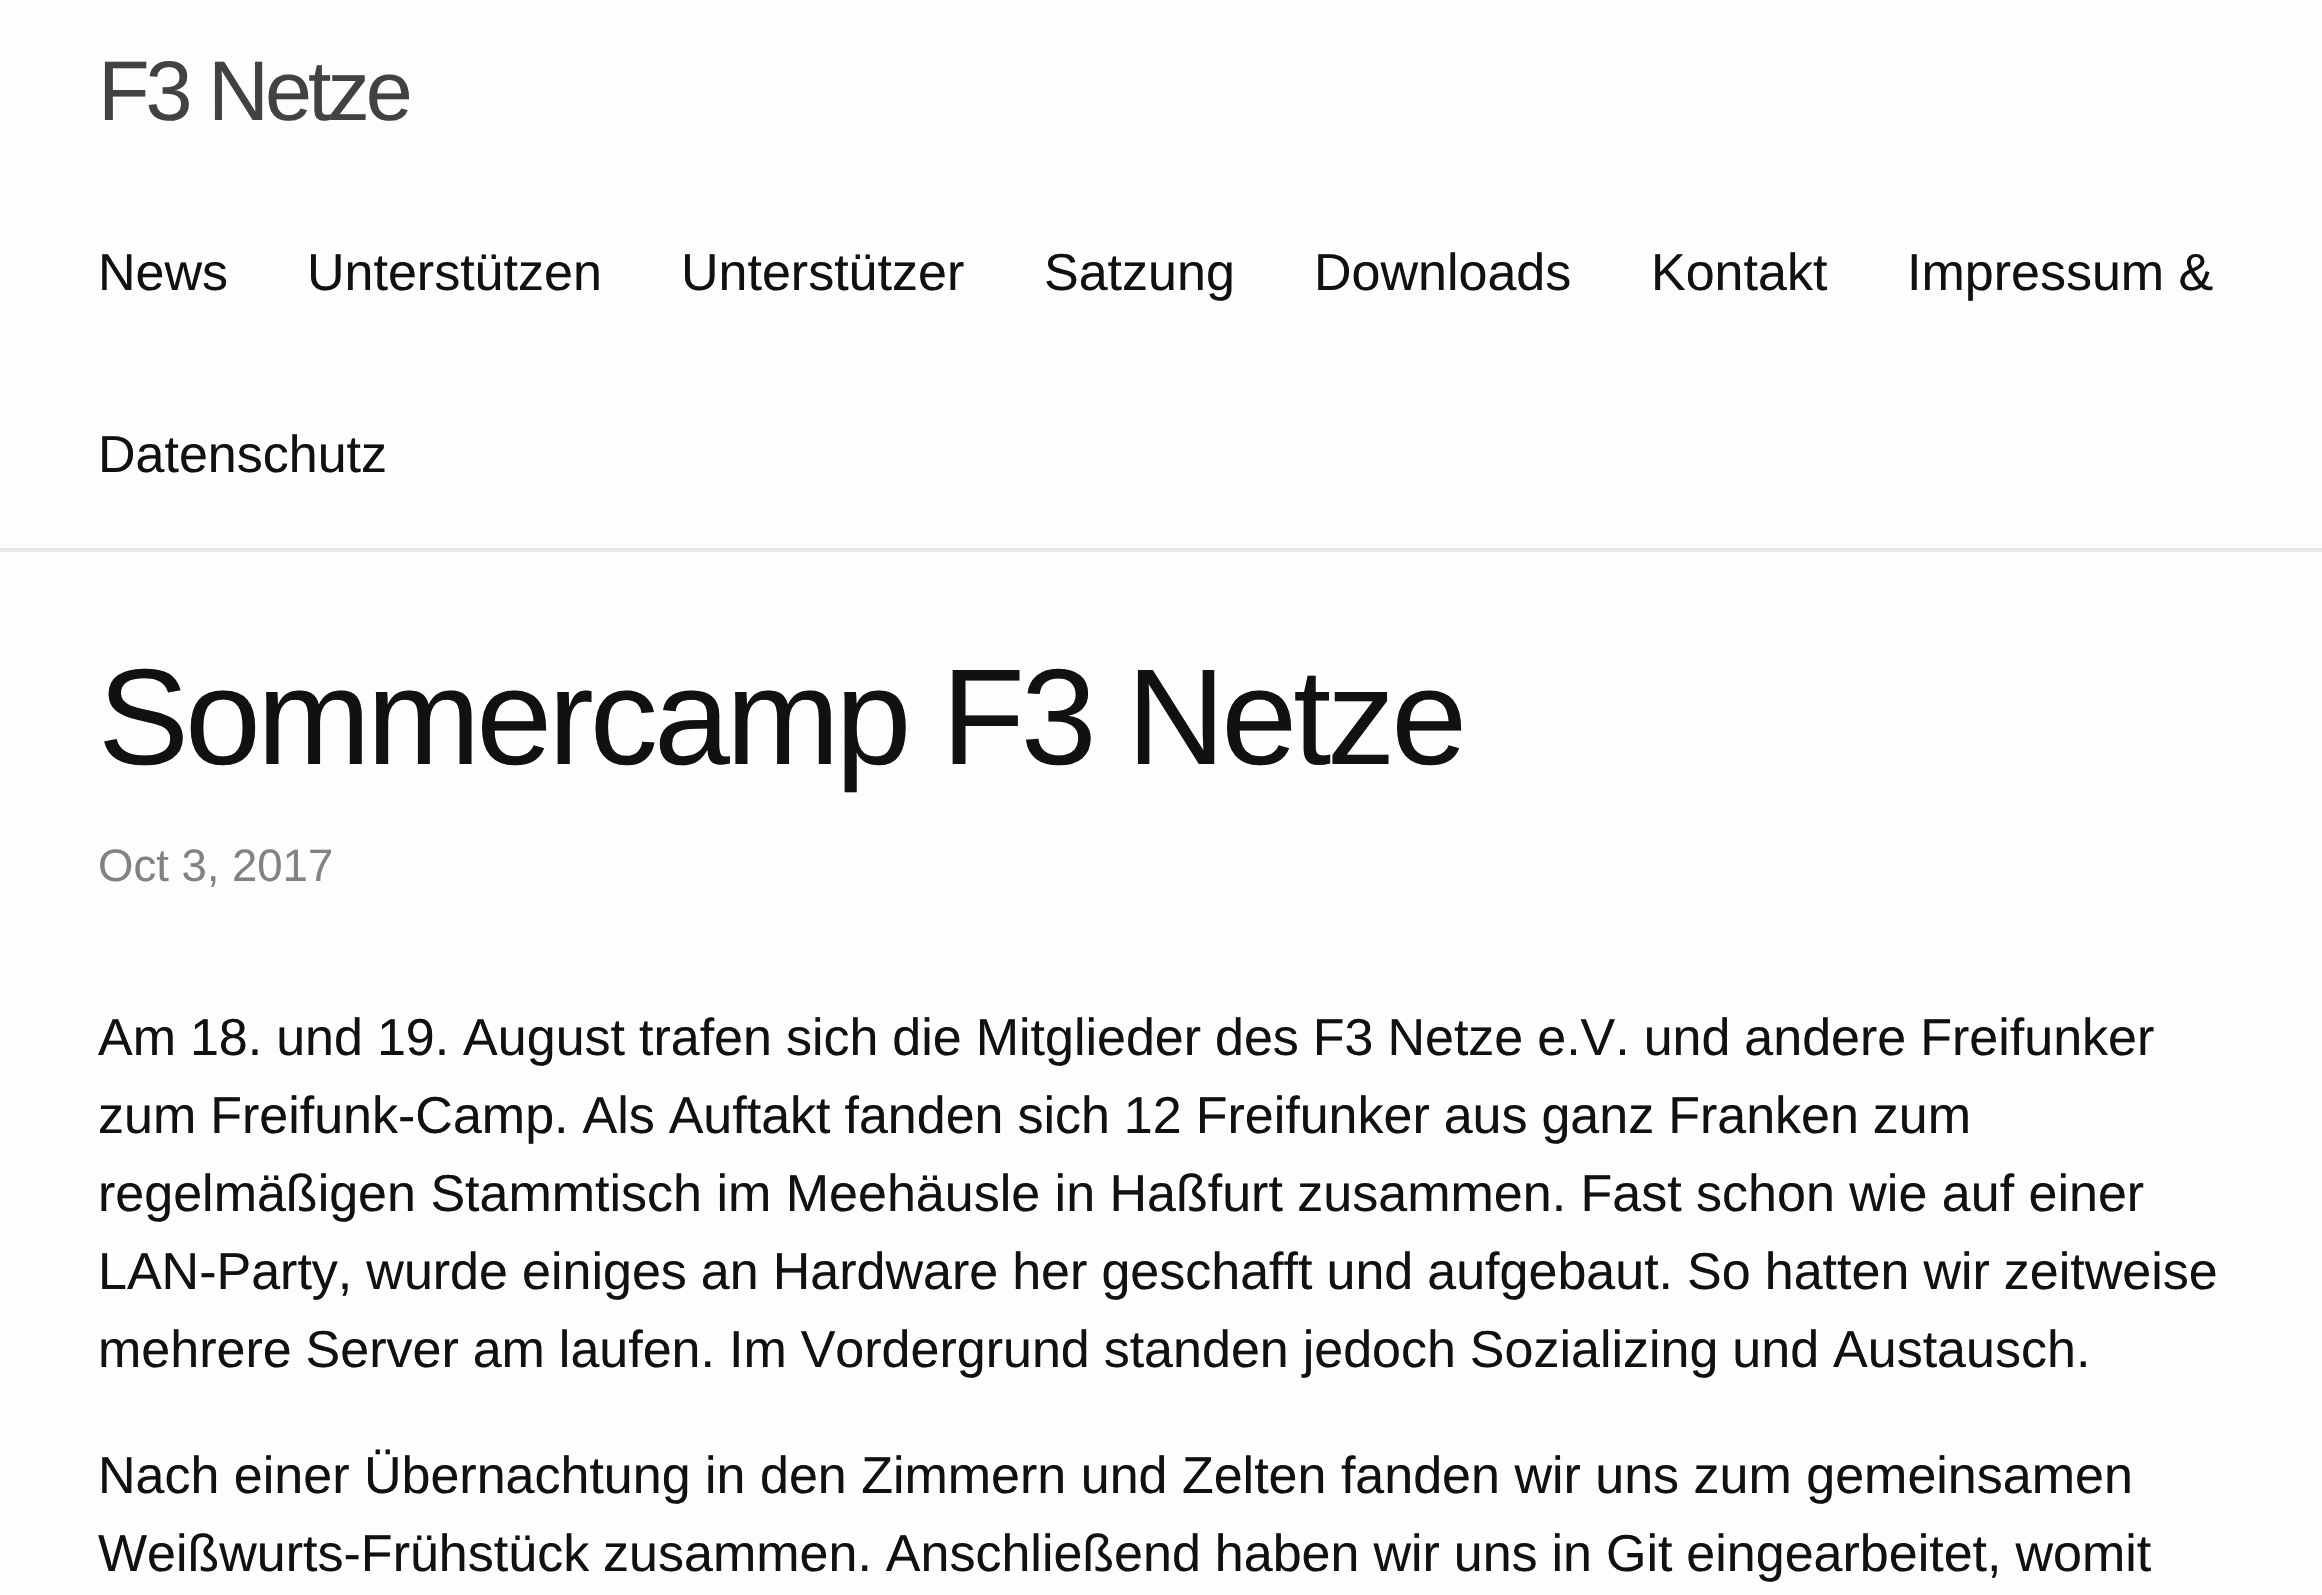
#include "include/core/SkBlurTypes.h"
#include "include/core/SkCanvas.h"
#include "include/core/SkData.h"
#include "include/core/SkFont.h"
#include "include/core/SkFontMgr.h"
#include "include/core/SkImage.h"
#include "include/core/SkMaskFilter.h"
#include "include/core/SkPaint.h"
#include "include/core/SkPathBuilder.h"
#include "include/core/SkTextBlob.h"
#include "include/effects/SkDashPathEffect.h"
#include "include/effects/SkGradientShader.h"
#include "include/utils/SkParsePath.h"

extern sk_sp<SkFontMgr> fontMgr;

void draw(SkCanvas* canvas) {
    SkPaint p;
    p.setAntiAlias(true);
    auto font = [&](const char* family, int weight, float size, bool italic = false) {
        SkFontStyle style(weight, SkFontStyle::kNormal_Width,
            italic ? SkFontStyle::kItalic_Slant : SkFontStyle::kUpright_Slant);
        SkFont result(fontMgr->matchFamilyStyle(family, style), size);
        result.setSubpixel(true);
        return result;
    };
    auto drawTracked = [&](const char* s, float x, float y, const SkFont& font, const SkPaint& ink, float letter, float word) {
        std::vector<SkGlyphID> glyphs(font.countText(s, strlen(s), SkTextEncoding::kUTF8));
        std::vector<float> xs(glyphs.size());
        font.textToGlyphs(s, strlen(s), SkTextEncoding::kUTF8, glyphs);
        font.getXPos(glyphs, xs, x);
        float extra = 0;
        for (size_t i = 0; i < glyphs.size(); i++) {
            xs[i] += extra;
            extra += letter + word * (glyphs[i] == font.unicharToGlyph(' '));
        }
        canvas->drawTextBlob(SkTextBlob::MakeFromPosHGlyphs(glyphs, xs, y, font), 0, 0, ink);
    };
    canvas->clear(0xFFFDFDFD);
    p.setColor(0xFFE8E8E8);
    canvas->drawRect(SkRect::MakeLTRB(0, 548, 2322, 552), p);
    auto font1 = font("Liberation Sans", 400, 84.5f);
    p.setColor(0xFF424242);
    drawTracked("F3 Netze", 98, 120, font1, p, -4, 0);
    auto font2 = font("Liberation Sans", 400, 52);
    p.setColor(0xFF111111);
    {
        const struct { const char* s; float x, y; } items[] = {
            {"News", 98, 290},
            {"Unterstützen", 307, 290},
            {"Unterstützer", 681, 290},
            {"Satzung", 1044, 290},
            {"Downloads", 1314, 290},
            {"Kontakt", 1651, 290},
            {"Impressum &", 1907, 290},
            {"Datenschutz", 98, 472},
        };
        for (auto [s, x, y] : items) {
            canvas->drawString(s, x, y, font2, p);
        }
    }
    auto font3 = font("Liberation Sans", 400, 136.5f);
    drawTracked("Sommercamp F3 Netze", 98, 764, font3, p, -4, 0);
    auto font4 = font("Liberation Sans", 400, 45.5f);
    p.setColor(0xFF828282);
    canvas->drawString("Oct 3, 2017", 98, 881, font4, p);
    p.setColor(0xFF111111);
    drawTracked("Am 18. und 19. August trafen sich die Mitglieder des F3 Netze e.V. und andere Freifunker", 98, 1055, font2, p, 0, -0.5f);
    drawTracked("zum Freifunk-Camp. Als Auftakt fanden sich 12 Freifunker aus ganz Franken zum", 98, 1133, font2, p, 0, -0.5f);
    canvas->drawString("regelmäßigen Stammtisch im Meehäusle in Haßfurt zusammen. Fast schon wie auf einer", 98, 1211, font2, p);
    drawTracked("LAN-Party, wurde einiges an Hardware her geschafft und aufgebaut. So hatten wir zeitweise", 98, 1289, font2, p, 0, -0.4f);
    drawTracked("mehrere Server am laufen. Im Vordergrund standen jedoch Sozializing und Austausch.", 98, 1367, font2, p, 0, -0.5f);
    canvas->drawString("Nach einer Übernachtung in den Zimmern und Zelten fanden wir uns zum gemeinsamen", 98, 1493, font2, p);
    drawTracked("Weißwurts-Frühstück zusammen. Anschließend haben wir uns in Git eingearbeitet, womit", 98, 1571, font2, p, 0, -0.5f);
}
